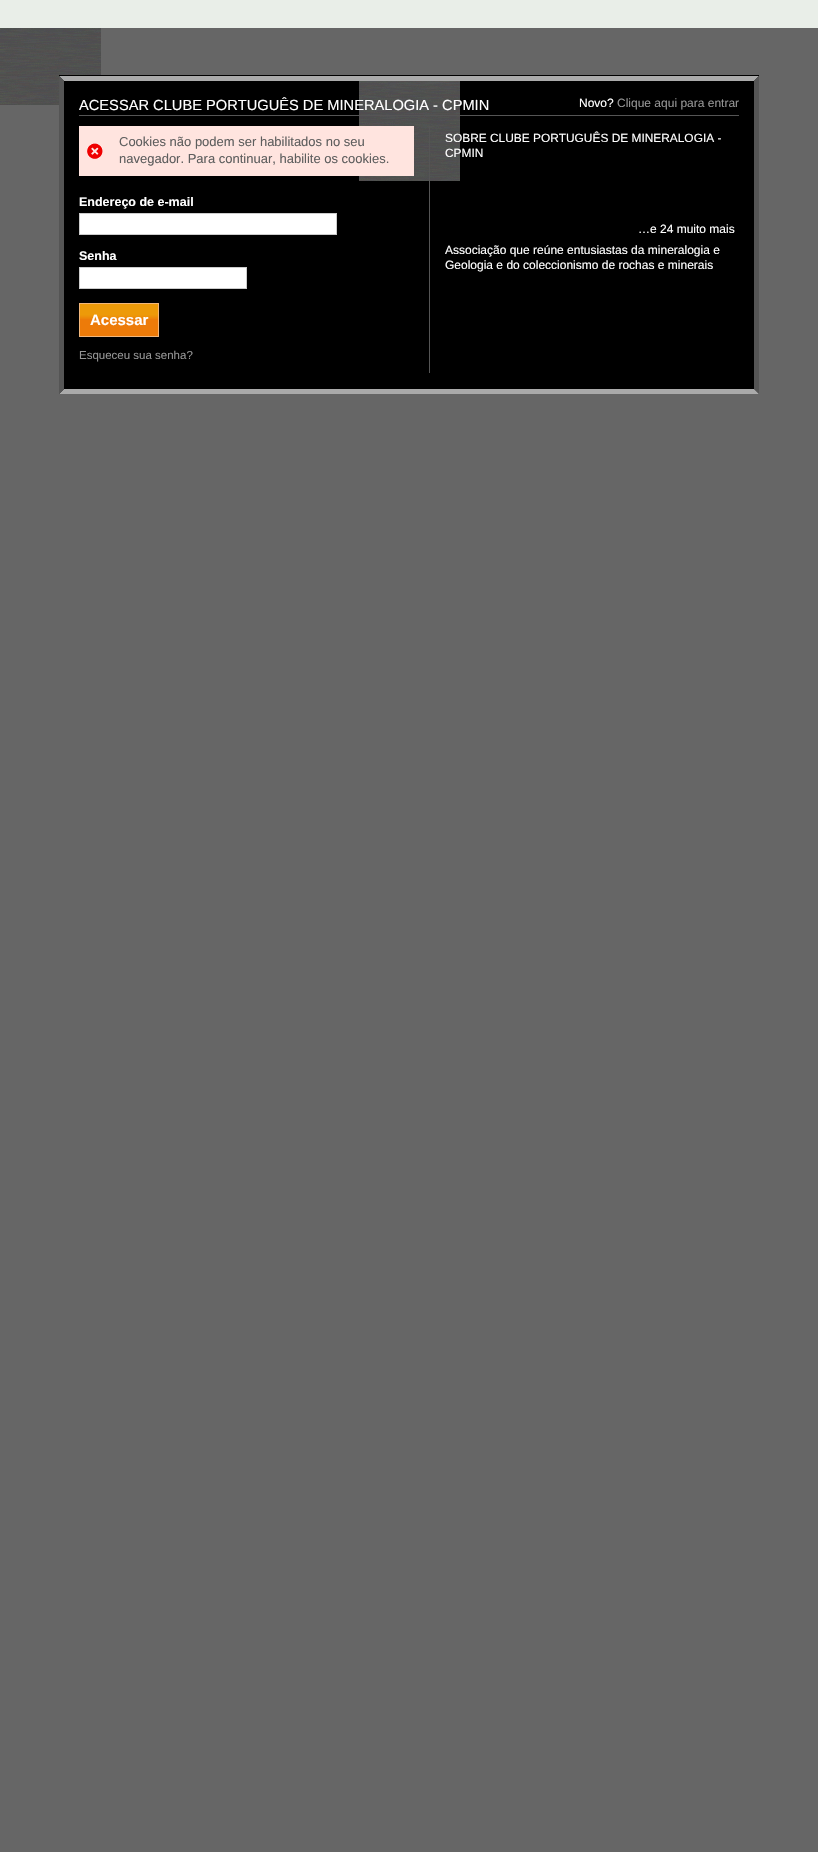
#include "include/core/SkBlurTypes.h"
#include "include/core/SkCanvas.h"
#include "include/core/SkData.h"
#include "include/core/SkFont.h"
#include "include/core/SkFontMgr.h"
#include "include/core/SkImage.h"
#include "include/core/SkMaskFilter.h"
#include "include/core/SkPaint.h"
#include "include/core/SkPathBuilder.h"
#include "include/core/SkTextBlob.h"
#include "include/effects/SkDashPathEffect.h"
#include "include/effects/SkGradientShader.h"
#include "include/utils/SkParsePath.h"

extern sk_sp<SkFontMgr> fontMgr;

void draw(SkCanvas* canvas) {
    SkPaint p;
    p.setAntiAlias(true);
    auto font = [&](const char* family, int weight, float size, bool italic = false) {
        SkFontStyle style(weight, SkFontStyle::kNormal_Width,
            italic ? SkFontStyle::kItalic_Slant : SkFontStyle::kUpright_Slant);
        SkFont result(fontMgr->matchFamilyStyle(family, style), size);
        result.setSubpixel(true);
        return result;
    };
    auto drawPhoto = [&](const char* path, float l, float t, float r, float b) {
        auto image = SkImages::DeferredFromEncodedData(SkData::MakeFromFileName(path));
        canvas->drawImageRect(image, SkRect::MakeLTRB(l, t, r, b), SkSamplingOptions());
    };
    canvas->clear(0xFF666666);
    drawPhoto("media/1.png", 0, 28, 101, 105);
    p.setColor(0xFFE9EEE8);
    canvas->drawRect(SkRect::MakeLTRB(0, 0, 818, 28), p);
    p.setColor(0xFF000000);
    canvas->drawRect(SkRect::MakeLTRB(59, 75, 759, 394), p);
    drawPhoto("media/2.png", 359, 81, 460, 181);
    p.setColor(0xFFAAAAAA);
    canvas->drawPath(SkPathBuilder().moveTo(59, 76).lineTo(759, 76).lineTo(754, 81).lineTo(64, 81).close().detach(), p);
    p.setColor(0xFF555555);
    canvas->drawPath(SkPathBuilder().moveTo(759, 76).lineTo(759, 394).lineTo(754, 389).lineTo(754, 81).close().detach(), p);
    p.setColor(0xFFAAAAAA);
    canvas->drawPath(SkPathBuilder().moveTo(759, 394).lineTo(59, 394).lineTo(64, 389).lineTo(754, 389).close().detach(), p);
    p.setColor(0xFF555555);
    canvas->drawPath(SkPathBuilder().moveTo(59, 394).lineTo(59, 76).lineTo(64, 81).lineTo(64, 389).close().detach(), p);
    canvas->drawRect(SkRect::MakeLTRB(79, 115, 739, 116), p);
    auto font1 = font("Liberation Sans", 400, 14.65f);
    p.setColor(0xFFFFFFFF);
    canvas->drawString("ACESSAR CLUBE PORTUGUÊS DE MINERALOGIA - CPMIN", 79, 110, font1, p);
    auto font2 = font("Liberation Sans", 400, 12);
    canvas->drawString("Novo?", 579, 107, font2, p);
    p.setColor(0xFF959595);
    canvas->drawString("Clique aqui para entrar", 617, 107, font2, p);
    p.setColor(0xFF555555);
    canvas->drawRect(SkRect::MakeLTRB(429, 126, 430, 373), p);
    p.setColor(0xFFFFE4DF);
    canvas->drawRect(SkRect::MakeLTRB(79, 126, 414, 176), p);
    drawPhoto("media/3.png", 87, 143, 103, 159);
    auto font3 = font("Liberation Sans", 400, 13);
    p.setColor(0xFF5E5E5E);
    canvas->drawString("Cookies não podem ser habilitados no seu", 119, 146, font3, p);
    canvas->drawString("navegador. Para continuar, habilite os cookies.", 119, 163, font3, p);
    auto font4 = font("Liberation Sans", 700, 12.5f);
    p.setColor(0xFFFFFFFF);
    canvas->drawString("Endereço de e-mail", 79, 206, font4, p);
    canvas->drawRect(SkRect::MakeLTRB(79.5f, 213.5f, 336.5f, 234.5f), p);
    p.setStyle(SkPaint::kStroke_Style);
    p.setStrokeWidth(1);
    p.setColor(0xFFCCCCCC);
    canvas->drawRect(SkRect::MakeLTRB(79.5f, 213.5f, 336.5f, 234.5f), p);
    p.setStyle(SkPaint::kFill_Style);
    p.setColor(0xFFFFFFFF);
    canvas->drawString("Senha", 79, 260, font4, p);
    canvas->drawRect(SkRect::MakeLTRB(79.5f, 267.5f, 246.5f, 288.5f), p);
    p.setStyle(SkPaint::kStroke_Style);
    p.setColor(0xFFCCCCCC);
    canvas->drawRect(SkRect::MakeLTRB(79.5f, 267.5f, 246.5f, 288.5f), p);
    p.setStyle(SkPaint::kFill_Style);
    p.setColor(0xFFED7B09);
    canvas->drawRect(SkRect::MakeLTRB(80, 319, 158, 336), p);
    drawPhoto("media/4.png", 80, 304, 158, 319);
    p.setStyle(SkPaint::kStroke_Style);
    p.setColor(0xFFF2B77C);
    canvas->drawRect(SkRect::MakeLTRB(79.5f, 303.5f, 158.5f, 336.5f), p);
    auto font5 = font("Liberation Sans", 700, 15);
    p.setStyle(SkPaint::kFill_Style);
    p.setColor(0xFFFFFFFF);
    canvas->drawString("Acessar", 90, 325, font5, p);
    auto font6 = font("Liberation Sans", 400, 11.5f);
    p.setColor(0xFF959595);
    canvas->drawString("Esqueceu sua senha?", 79, 359, font6, p);
    auto font7 = font("Liberation Sans", 400, 11.9f);
    p.setColor(0xFFFFFFFF);
    canvas->drawString("SOBRE CLUBE PORTUGUÊS DE MINERALOGIA -", 445, 142, font7, p);
    canvas->drawString("CPMIN", 445, 157, font7, p);
    {
        const struct { const char* s; float x, y; } items[] = {
            {"…e 24 muito mais", 638, 233},
            {"Associação que reúne entusiastas da mineralogia e", 445, 254},
            {"Geologia e do coleccionismo de rochas e minerais", 445, 269},
        };
        for (auto [s, x, y] : items) {
            canvas->drawString(s, x, y, font2, p);
        }
    }
}
